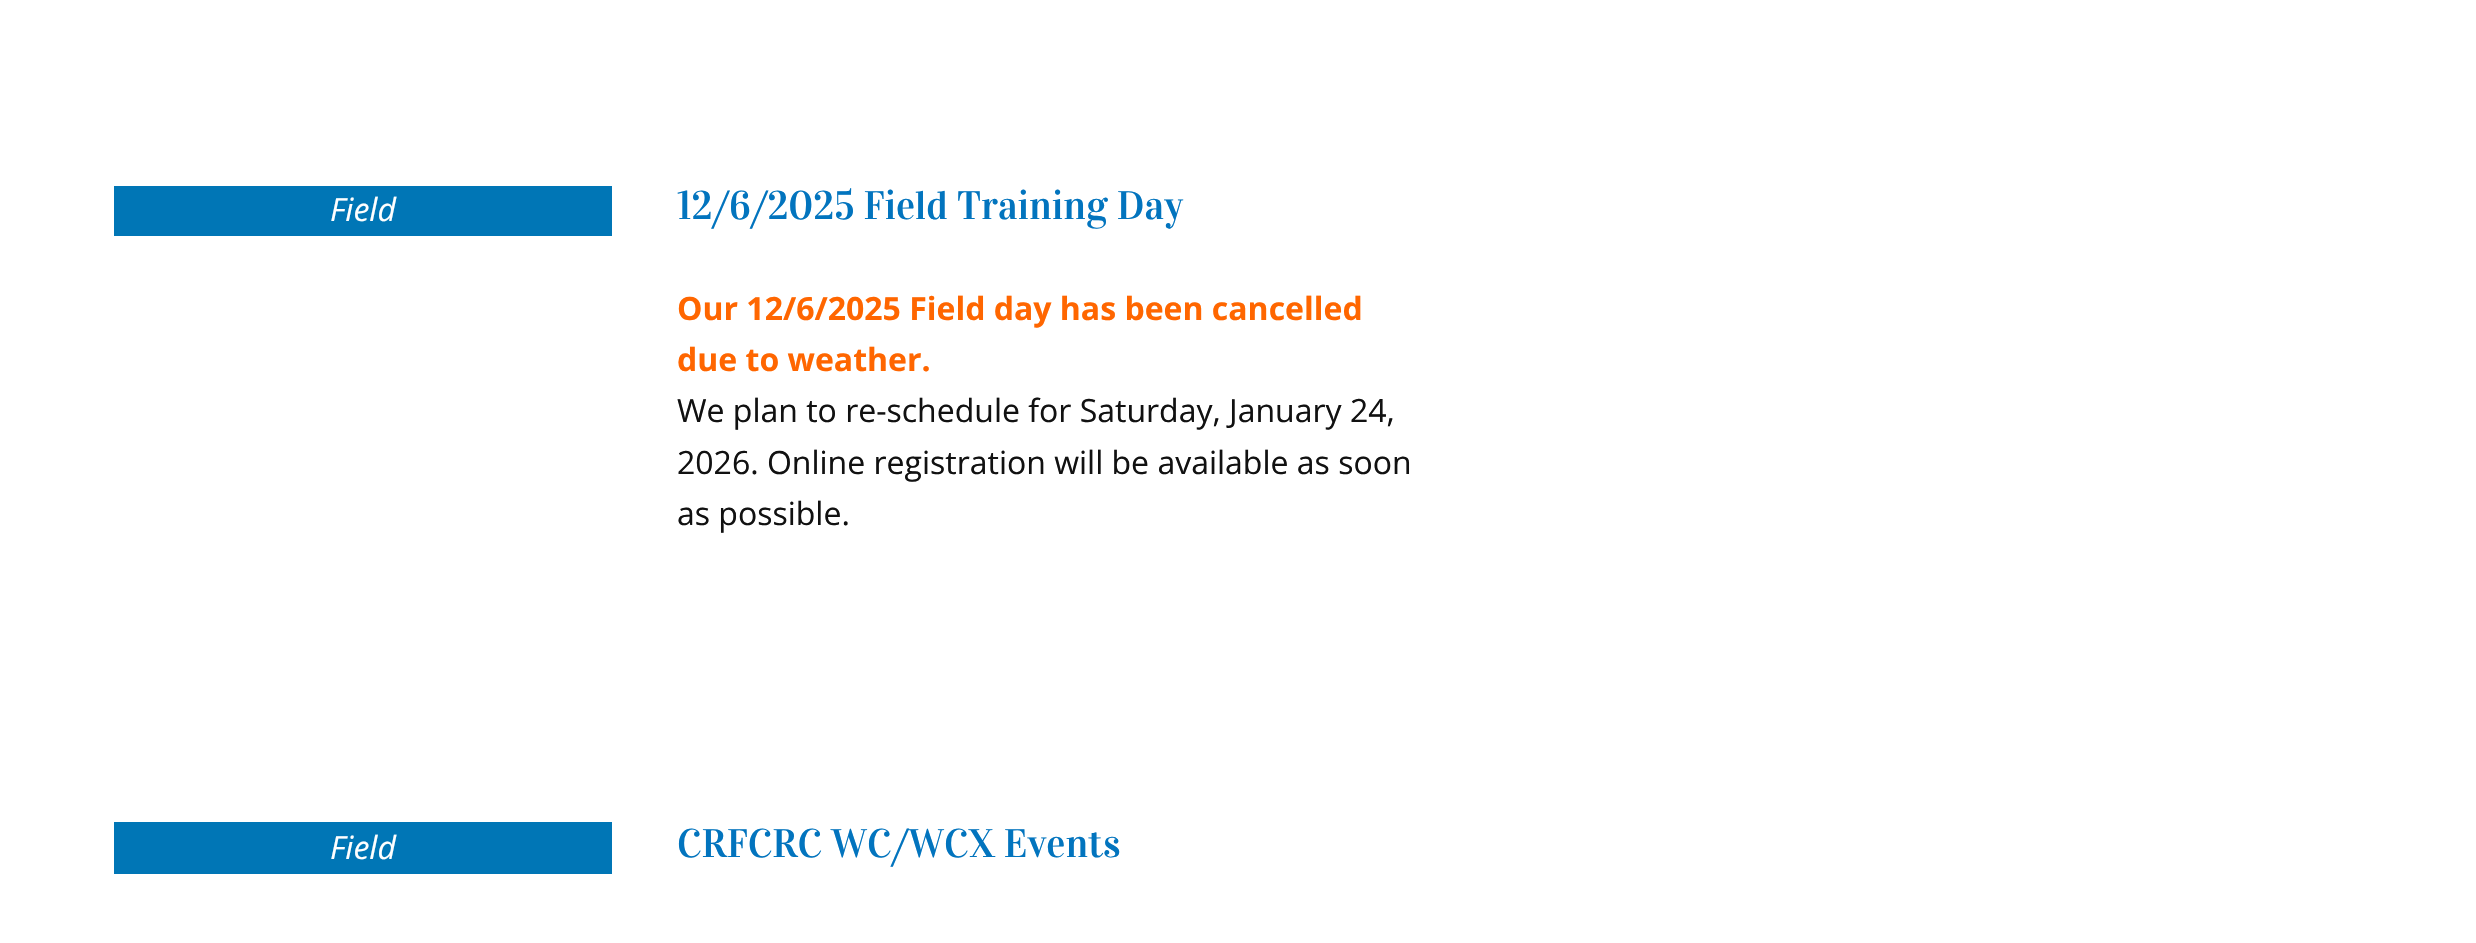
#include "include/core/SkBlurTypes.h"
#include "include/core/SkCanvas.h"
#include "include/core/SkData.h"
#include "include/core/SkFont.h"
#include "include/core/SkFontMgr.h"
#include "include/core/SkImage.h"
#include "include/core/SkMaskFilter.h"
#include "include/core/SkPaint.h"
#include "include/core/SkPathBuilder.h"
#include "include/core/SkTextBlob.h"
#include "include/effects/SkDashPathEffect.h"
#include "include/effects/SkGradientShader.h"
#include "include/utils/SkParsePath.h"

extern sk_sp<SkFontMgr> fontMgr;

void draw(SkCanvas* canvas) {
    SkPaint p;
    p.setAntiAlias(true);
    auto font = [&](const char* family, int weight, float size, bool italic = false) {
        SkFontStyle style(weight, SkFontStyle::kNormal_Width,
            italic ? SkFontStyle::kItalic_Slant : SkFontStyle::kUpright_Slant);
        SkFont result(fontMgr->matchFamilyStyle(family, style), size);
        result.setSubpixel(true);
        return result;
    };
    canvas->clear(0xFFFFFFFF);
    p.setColor(0xFF0076B6);
    canvas->drawRect(SkRect::MakeLTRB(114, 186, 612, 236), p);
    auto font1 = font("Open Sans", 400, 32, true);
    p.setColor(0xFFFFFFFF);
    canvas->drawString("Field", 330, 221, font1, p);
    auto font2 = font("Vidaloka", 400, 40);
    p.setColor(0xFF0274BE);
    canvas->drawString("12/6/2025 Field Training Day", 677, 219, font2, p);
    auto font3 = font("Open Sans", 700, 32);
    p.setColor(0xFFFF6600);
    canvas->drawString("Our 12/6/2025 Field day has been cancelled", 677, 320, font3, p);
    canvas->drawString("due to weather.", 677, 371, font3, p);
    auto font4 = font("Open Sans", 400, 32);
    p.setColor(0xFF111111);
    {
        const struct { const char* s; float x, y; } items[] = {
            {"We plan to re-schedule for Saturday, January 24,", 677, 422},
            {"2026. Online registration will be available as soon", 677, 474},
            {"as possible.", 677, 525},
        };
        for (auto [s, x, y] : items) {
            canvas->drawString(s, x, y, font4, p);
        }
    }
    p.setColor(0xFF0076B6);
    canvas->drawRect(SkRect::MakeLTRB(114, 822, 612, 874), p);
    p.setColor(0xFFFFFFFF);
    canvas->drawString("Field", 330, 859, font1, p);
    p.setColor(0xFF0274BE);
    canvas->drawString("CRFCRC WC/WCX Events", 677, 857, font2, p);
}
